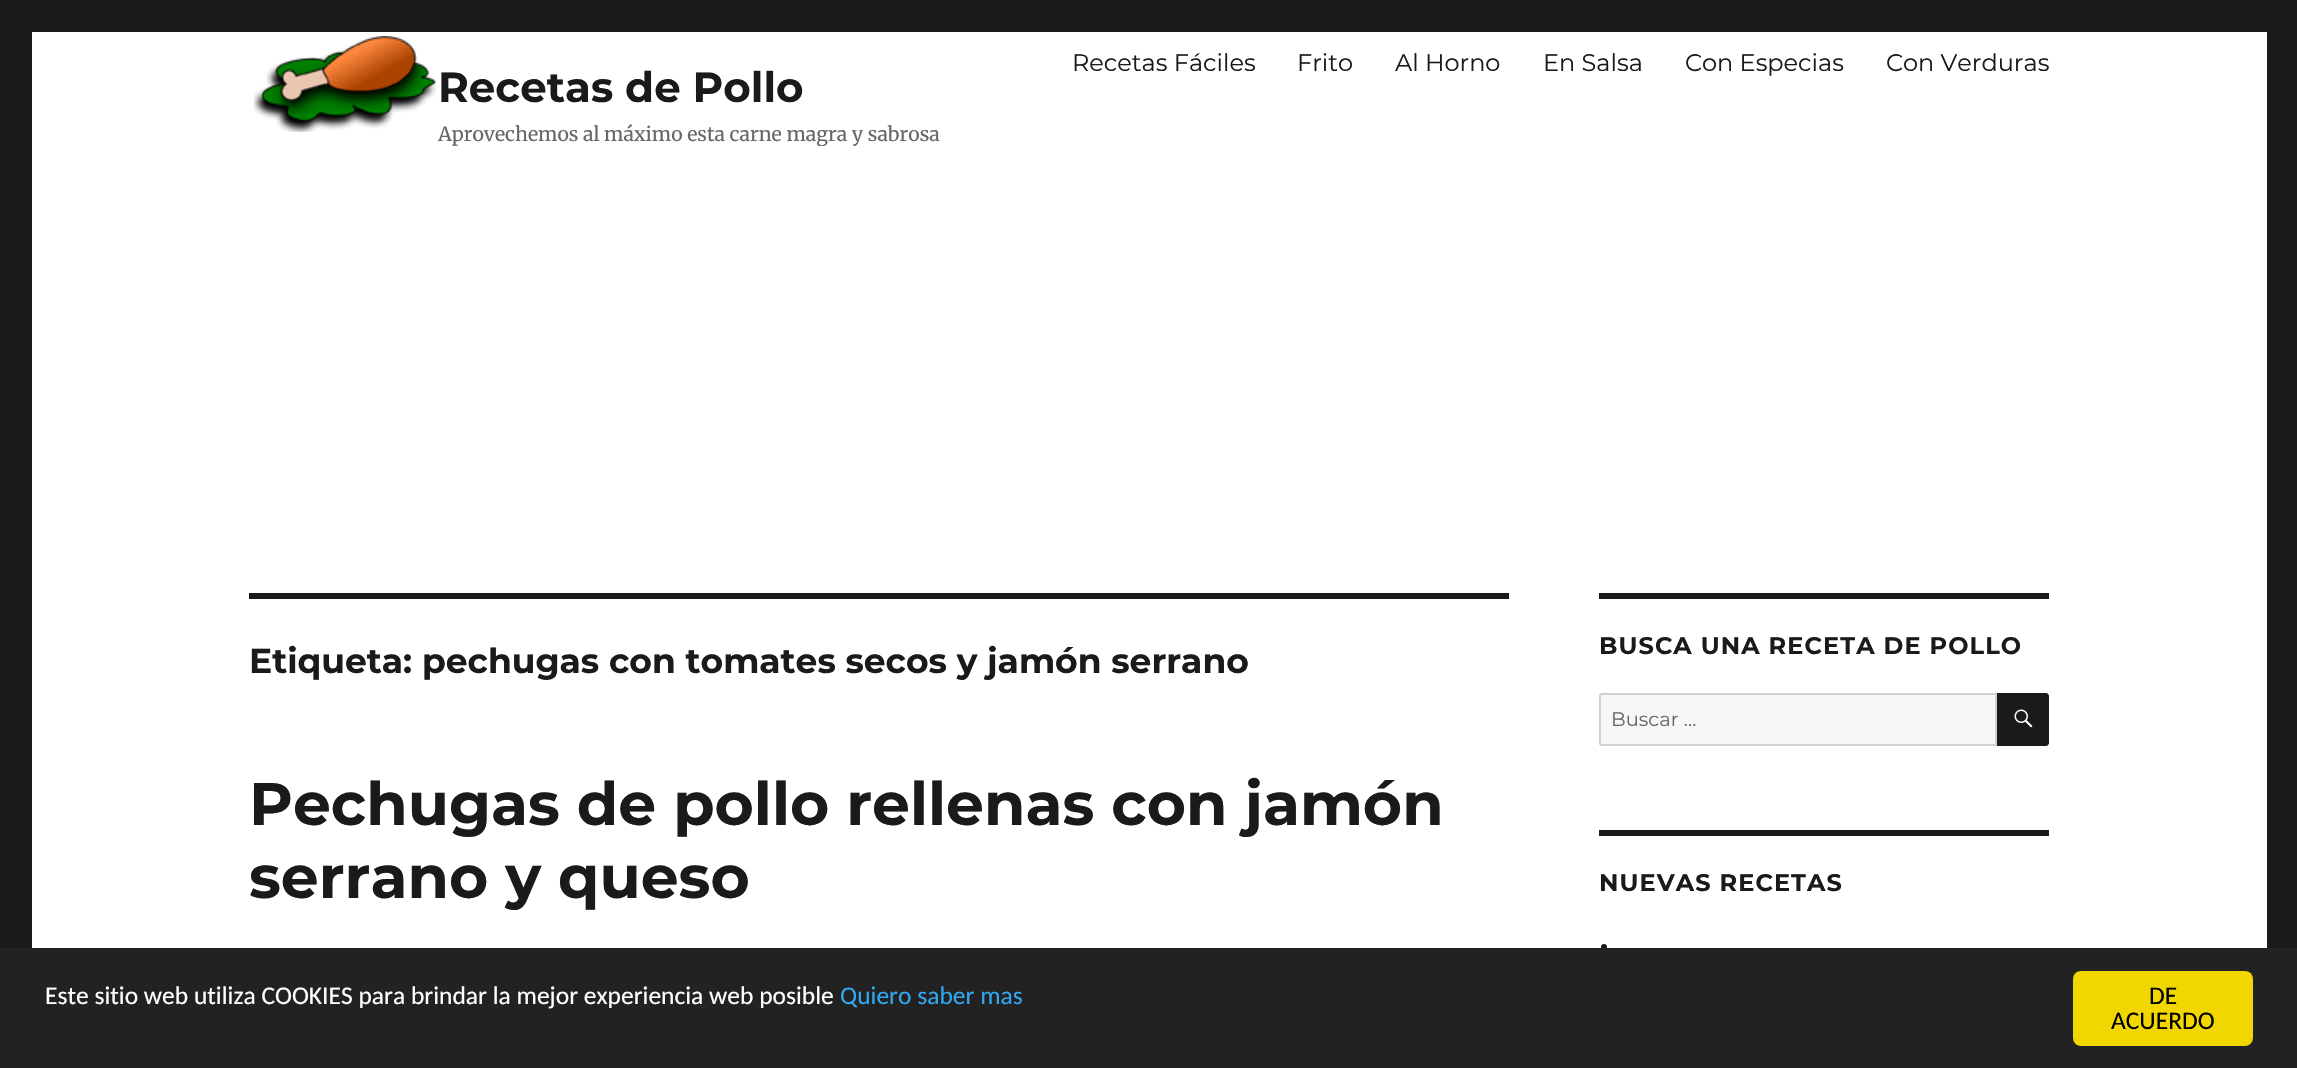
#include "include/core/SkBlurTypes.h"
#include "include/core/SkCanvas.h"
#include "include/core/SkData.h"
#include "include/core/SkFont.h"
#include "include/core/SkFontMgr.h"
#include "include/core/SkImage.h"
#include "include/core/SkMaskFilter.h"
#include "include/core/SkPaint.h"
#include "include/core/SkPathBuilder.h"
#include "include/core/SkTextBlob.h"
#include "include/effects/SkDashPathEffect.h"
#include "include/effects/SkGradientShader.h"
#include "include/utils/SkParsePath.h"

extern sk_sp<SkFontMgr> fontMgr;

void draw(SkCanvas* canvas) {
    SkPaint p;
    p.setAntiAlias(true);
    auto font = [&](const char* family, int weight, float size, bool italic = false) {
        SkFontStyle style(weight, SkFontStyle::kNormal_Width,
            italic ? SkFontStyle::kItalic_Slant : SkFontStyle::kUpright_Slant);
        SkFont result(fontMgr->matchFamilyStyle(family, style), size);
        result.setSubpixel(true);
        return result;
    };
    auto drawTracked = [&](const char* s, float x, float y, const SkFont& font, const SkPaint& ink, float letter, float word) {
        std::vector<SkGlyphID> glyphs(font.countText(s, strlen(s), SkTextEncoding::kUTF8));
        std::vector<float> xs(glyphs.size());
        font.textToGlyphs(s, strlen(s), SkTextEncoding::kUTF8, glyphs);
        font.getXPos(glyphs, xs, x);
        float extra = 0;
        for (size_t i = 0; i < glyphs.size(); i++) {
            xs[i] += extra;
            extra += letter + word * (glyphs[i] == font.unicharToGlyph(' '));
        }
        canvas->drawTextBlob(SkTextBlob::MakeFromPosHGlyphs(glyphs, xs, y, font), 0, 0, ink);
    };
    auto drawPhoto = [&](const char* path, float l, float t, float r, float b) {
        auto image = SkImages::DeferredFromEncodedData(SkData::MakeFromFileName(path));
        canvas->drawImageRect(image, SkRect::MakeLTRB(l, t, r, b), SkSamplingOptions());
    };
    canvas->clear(0xFF1A1A1A);
    p.setColor(0xFFFFFFFF);
    canvas->drawRect(SkRect::MakeLTRB(32, 32, 2267, 948), p);
    auto font1 = font("Montserrat", 400, 24);
    p.setColor(0xFF1A1A1A);
    {
        const struct { const char* s; float x, y; } items[] = {
            {"Recetas Fáciles", 1072, 71},
            {"Frito", 1297, 71},
            {"Al Horno", 1395, 71},
            {"En Salsa", 1543, 71},
            {"Con Especias", 1685, 71},
            {"Con Verduras", 1886, 71},
        };
        for (auto [s, x, y] : items) {
            canvas->drawString(s, x, y, font1, p);
        }
    }
    drawPhoto("media/1.png", 253, 36, 437, 132);
    auto font2 = font("Montserrat", 700, 42);
    canvas->drawString("Recetas de Pollo", 438, 102, font2, p);
    canvas->save();
    canvas->clipRect(SkRect::MakeLTRB(254, 36, 941, 146));
    auto font3 = font("Merriweather", 400, 19.5f);
    p.setColor(0xFF686868);
    canvas->drawString("Aprovechemos al máximo esta carne magra y sabrosa", 438, 141, font3, p);
    canvas->restore();
    p.setColor(0xFF1A1A1A);
    canvas->drawRect(SkRect::MakeLTRB(249, 593, 1509, 599), p);
    auto font4 = font("Montserrat", 700, 34.5f);
    canvas->drawString("Etiqueta: pechugas con tomates secos y jamón serrano", 249, 673, font4, p);
    auto font5 = font("Montserrat", 700, 60);
    canvas->drawString("Pechugas de pollo rellenas con jamón", 249, 825, font5, p);
    canvas->drawString("serrano y queso", 249, 898, font5, p);
    canvas->drawRect(SkRect::MakeLTRB(1599, 593, 2049, 599), p);
    auto font6 = font("Montserrat", 700, 24);
    drawTracked("BUSCA UNA RECETA DE POLLO", 1599, 654, font6, p, 1.1f, 0);
    p.setColor(0xFFF7F7F7);
    canvas->drawPath(SkPathBuilder().moveTo(1602, 694).lineTo(1996, 694).lineTo(1996, 745).lineTo(1602, 745).cubicTo(1601, 745, 1600, 744, 1600, 743).lineTo(1600, 696).cubicTo(1600, 695, 1601, 694, 1602, 694).close().detach(), p);
    p.setStyle(SkPaint::kStroke_Style);
    p.setStrokeWidth(2);
    p.setColor(0xFFD1D1D1);
    canvas->drawPath(SkPathBuilder().moveTo(1602, 694).lineTo(1996, 694).lineTo(1996, 745).lineTo(1602, 745).cubicTo(1601, 745, 1600, 744, 1600, 743).lineTo(1600, 696).cubicTo(1600, 695, 1601, 694, 1602, 694).close().detach(), p);
    auto font7 = font("Montserrat", 400, 19.5f);
    p.setStyle(SkPaint::kFill_Style);
    p.setColor(0xFF686868);
    canvas->drawString("Buscar …", 1611, 726, font7, p);
    p.setColor(0xFF1A1A1A);
    canvas->drawPath(SkPathBuilder().moveTo(1997, 693).lineTo(2046, 693).cubicTo(2047.5f, 693, 2049, 694.5f, 2049, 696).lineTo(2049, 743).cubicTo(2049, 744.5f, 2047.5f, 746, 2046, 746).lineTo(1997, 746).close().detach(), p);
    drawPhoto("media/2.png", 2014, 709, 2033, 728);
    canvas->drawRect(SkRect::MakeLTRB(1599, 830, 2049, 836), p);
    drawTracked("NUEVAS RECETAS", 1599, 891, font6, p, 1.1f, 0);
    canvas->drawCircle(1604, 947, 3, p);
    p.setColor(0xFF222222);
    canvas->drawRect(SkRect::MakeLTRB(0, 948, 2297, 1068), p);
    auto font8 = font("Carlito", 400, 25.5f);
    p.setColor(0xFFFFFFFF);
    canvas->drawString("Este sitio web utiliza COOKIES para brindar la mejor experiencia web posible", 45, 1004, font8, p);
    p.setColor(0xFF31A8F0);
    canvas->drawString("Quiero saber mas", 840, 1004, font8, p);
    p.setColor(0xFFF1D600);
    canvas->drawRoundRect(SkRect::MakeLTRB(2073, 971, 2253, 1046), 8, 8, p);
    p.setColor(0xFF000000);
    canvas->drawString("DE", 2149, 1004, font8, p);
    canvas->drawString("ACUERDO", 2111, 1029, font8, p);
}
